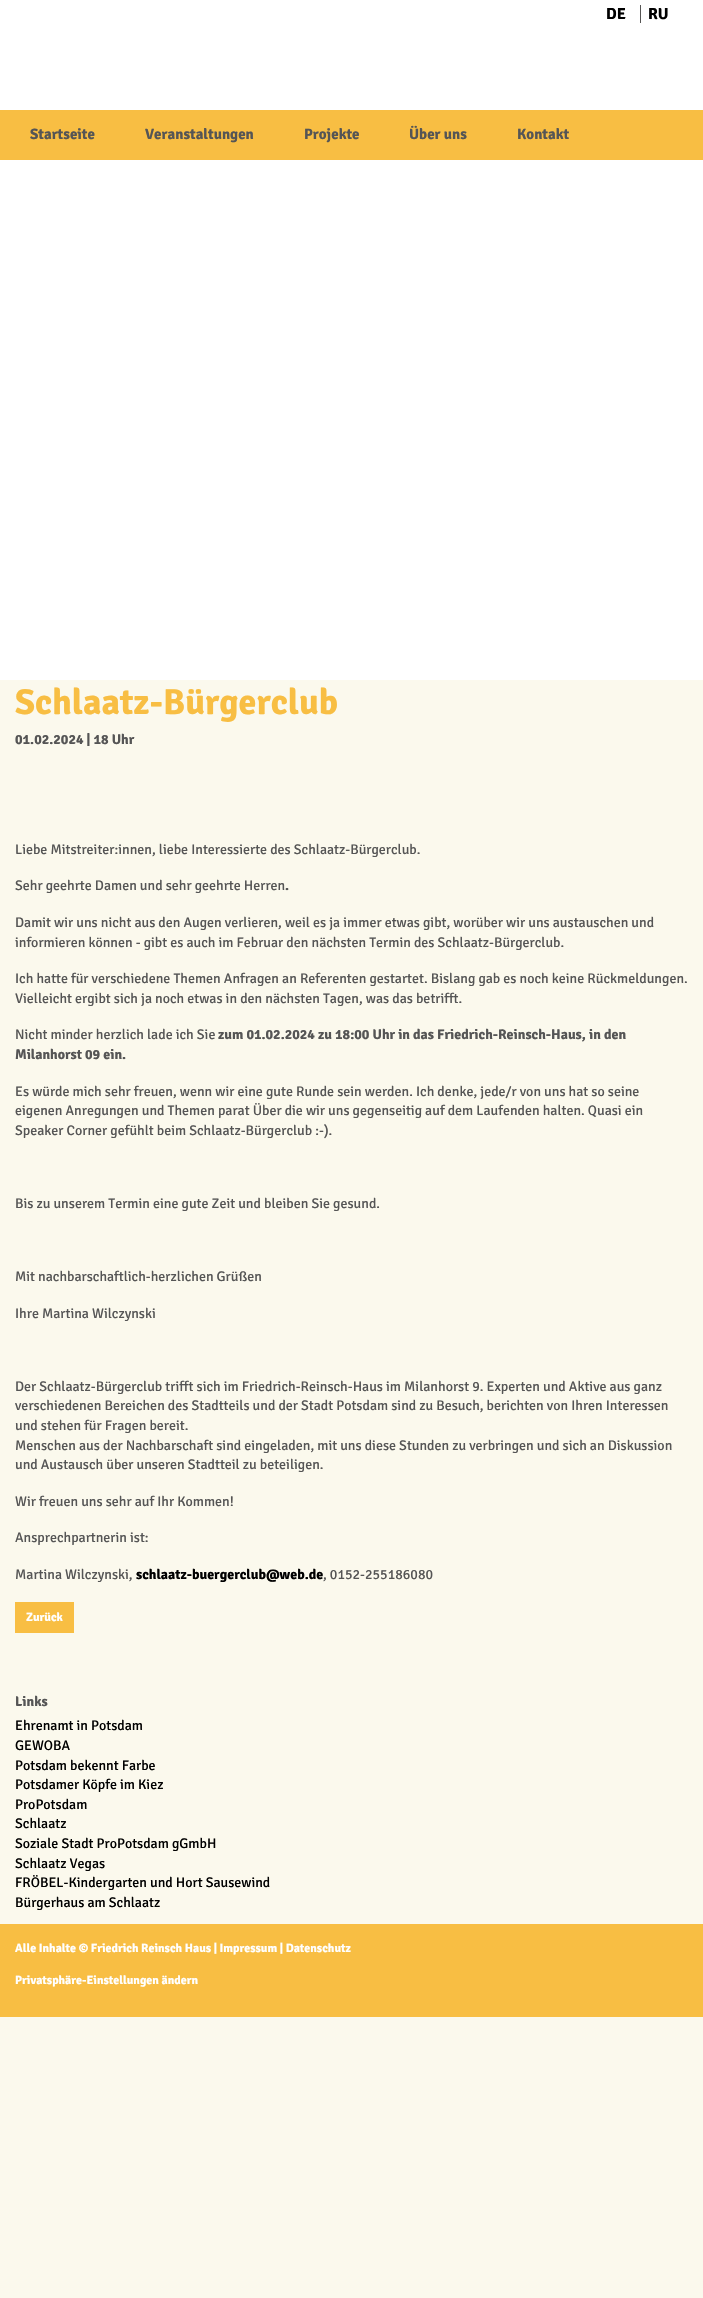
#include "include/core/SkBlurTypes.h"
#include "include/core/SkCanvas.h"
#include "include/core/SkData.h"
#include "include/core/SkFont.h"
#include "include/core/SkFontMgr.h"
#include "include/core/SkImage.h"
#include "include/core/SkMaskFilter.h"
#include "include/core/SkPaint.h"
#include "include/core/SkPathBuilder.h"
#include "include/core/SkTextBlob.h"
#include "include/effects/SkDashPathEffect.h"
#include "include/effects/SkGradientShader.h"
#include "include/utils/SkParsePath.h"

extern sk_sp<SkFontMgr> fontMgr;

void draw(SkCanvas* canvas) {
    SkPaint p;
    p.setAntiAlias(true);
    auto font = [&](const char* family, int weight, float size, bool italic = false) {
        SkFontStyle style(weight, SkFontStyle::kNormal_Width,
            italic ? SkFontStyle::kItalic_Slant : SkFontStyle::kUpright_Slant);
        SkFont result(fontMgr->matchFamilyStyle(family, style), size);
        result.setSubpixel(true);
        return result;
    };
    canvas->clear(0xFFFBF9ED);
    p.setColor(0xFFFFFFFF);
    canvas->drawRect(SkRect::MakeLTRB(0, 0, 703, 680), p);
    auto font1 = font("Signika", 700, 16);
    p.setColor(0xFF000000);
    canvas->drawString("DE", 606, 19, font1, p);
    p.setColor(0xFF565554);
    canvas->drawRect(SkRect::MakeLTRB(640, 5, 641, 23), p);
    p.setColor(0xFF000000);
    canvas->drawString("RU", 648, 19, font1, p);
    p.setColor(0xFFF8BE43);
    canvas->drawRect(SkRect::MakeLTRB(0, 110, 703, 160), p);
    auto font2 = font("Signika", 700, 15);
    p.setColor(0xFF555555);
    {
        const struct { const char* s; float x, y; } items[] = {
            {"Startseite", 30, 139},
            {"Veranstaltungen", 145, 139},
            {"Projekte", 304, 139},
            {"Über uns", 409, 139},
            {"Kontakt", 517, 139},
        };
        for (auto [s, x, y] : items) {
            canvas->drawString(s, x, y, font2, p);
        }
    }
    auto font3 = font("Signika", 700, 36);
    p.setColor(0xFFF8BE43);
    canvas->drawString("Schlaatz-Bürgerclub", 15, 714, font3, p);
    auto font4 = font("Signika", 700, 14);
    p.setColor(0xFF555555);
    canvas->drawString("01.02.2024 | 18 Uhr", 15, 744, font4, p);
    auto font5 = font("Signika", 400, 14);
    canvas->drawString("Liebe Mitstreiter:innen, liebe Interessierte des Schlaatz-Bürgerclub.", 15, 854, font5, p);
    canvas->drawString("Sehr geehrte Damen und sehr geehrte Herren", 15, 890, font5, p);
    canvas->drawString(".", 285, 890, font4, p);
    {
        const struct { const char* s; float x, y; } items[] = {
            {"Damit wir uns nicht aus den Augen verlieren, weil es ja immer etwas gibt, worüber wir uns austauschen und", 15, 927},
            {"informieren können - gibt es auch im Februar den nächsten Termin des Schlaatz-Bürgerclub.", 15, 947},
            {"Ich hatte für verschiedene Themen Anfragen an Referenten gestartet. Bislang gab es noch keine Rückmeldungen.", 15, 983},
            {"Vielleicht ergibt sich ja noch etwas in den nächsten Tagen, was das betrifft.", 15, 1003},
            {"Nicht minder herzlich lade ich Sie", 15, 1039},
        };
        for (auto [s, x, y] : items) {
            canvas->drawString(s, x, y, font5, p);
        }
    }
    canvas->drawString("zum 01.02.2024 zu 18:00 Uhr in das Friedrich-Reinsch-Haus, in den", 218, 1039, font4, p);
    canvas->drawString("Milanhorst 09 ein.", 15, 1059, font4, p);
    {
        const struct { const char* s; float x, y; } items[] = {
            {"Es würde mich sehr freuen, wenn wir eine gute Runde sein werden. Ich denke, jede/r von uns hat so seine", 15, 1096},
            {"eigenen Anregungen und Themen parat Über die wir uns gegenseitig auf dem Laufenden halten. Quasi ein", 15, 1115},
            {"Speaker Corner gefühlt beim Schlaatz-Bürgerclub :-).", 15, 1135},
            {"Bis zu unserem Termin eine gute Zeit und bleiben Sie gesund.", 15, 1208},
            {"Mit nachbarschaftlich-herzlichen Grüßen", 15, 1281},
            {"Ihre Martina Wilczynski", 15, 1318},
            {"Der Schlaatz-Bürgerclub trifft sich im Friedrich-Reinsch-Haus im Milanhorst 9. Experten und Aktive aus ganz", 15, 1391},
            {"verschiedenen Bereichen des Stadtteils und der Stadt Potsdam sind zu Besuch, berichten von Ihren Interessen", 15, 1410},
            {"und stehen für Fragen bereit.", 15, 1430},
            {"Menschen aus der Nachbarschaft sind eingeladen, mit uns diese Stunden zu verbringen und sich an Diskussion", 15, 1450},
            {"und Austausch über unseren Stadtteil zu beteiligen.", 15, 1469},
            {"Wir freuen uns sehr auf Ihr Kommen!", 15, 1506},
            {"Ansprechpartnerin ist:", 15, 1542},
            {"Martina Wilczynski,", 15, 1579},
        };
        for (auto [s, x, y] : items) {
            canvas->drawString(s, x, y, font5, p);
        }
    }
    p.setColor(0xFF000000);
    canvas->drawString("schlaatz-buergerclub@web.de", 136, 1579, font4, p);
    p.setColor(0xFF555555);
    canvas->drawString(", 0152-255186080", 323, 1579, font5, p);
    p.setColor(0xFFF8BE43);
    canvas->drawRect(SkRect::MakeLTRB(15, 1602, 74, 1633), p);
    auto font6 = font("Signika", 700, 12);
    p.setColor(0xFFFFFFFF);
    canvas->drawString("Zurück", 26, 1621, font6, p);
    p.setColor(0xFF555555);
    canvas->drawString("Links", 15, 1706, font4, p);
    p.setColor(0xFF000000);
    {
        const struct { const char* s; float x, y; } items[] = {
            {"Ehrenamt in Potsdam", 15, 1730},
            {"GEWOBA", 15, 1750},
            {"Potsdam bekennt Farbe", 15, 1770},
            {"Potsdamer Köpfe im Kiez", 15, 1789},
            {"ProPotsdam", 15, 1809},
            {"Schlaatz", 15, 1828},
            {"Soziale Stadt ProPotsdam gGmbH", 15, 1848},
            {"Schlaatz Vegas", 15, 1868},
            {"FRÖBEL-Kindergarten und Hort Sausewind", 15, 1887},
            {"Bürgerhaus am Schlaatz", 15, 1907},
        };
        for (auto [s, x, y] : items) {
            canvas->drawString(s, x, y, font5, p);
        }
    }
    p.setColor(0xFFF8BE43);
    canvas->drawRect(SkRect::MakeLTRB(0, 1924, 703, 2017), p);
    p.setColor(0xFFFFFFFF);
    canvas->drawString("Alle Inhalte © Friedrich Reinsch Haus | Impressum | Datenschutz", 15, 1952, font6, p);
    canvas->drawString("Privatsphäre-Einstellungen ändern", 15, 1984, font6, p);
}
